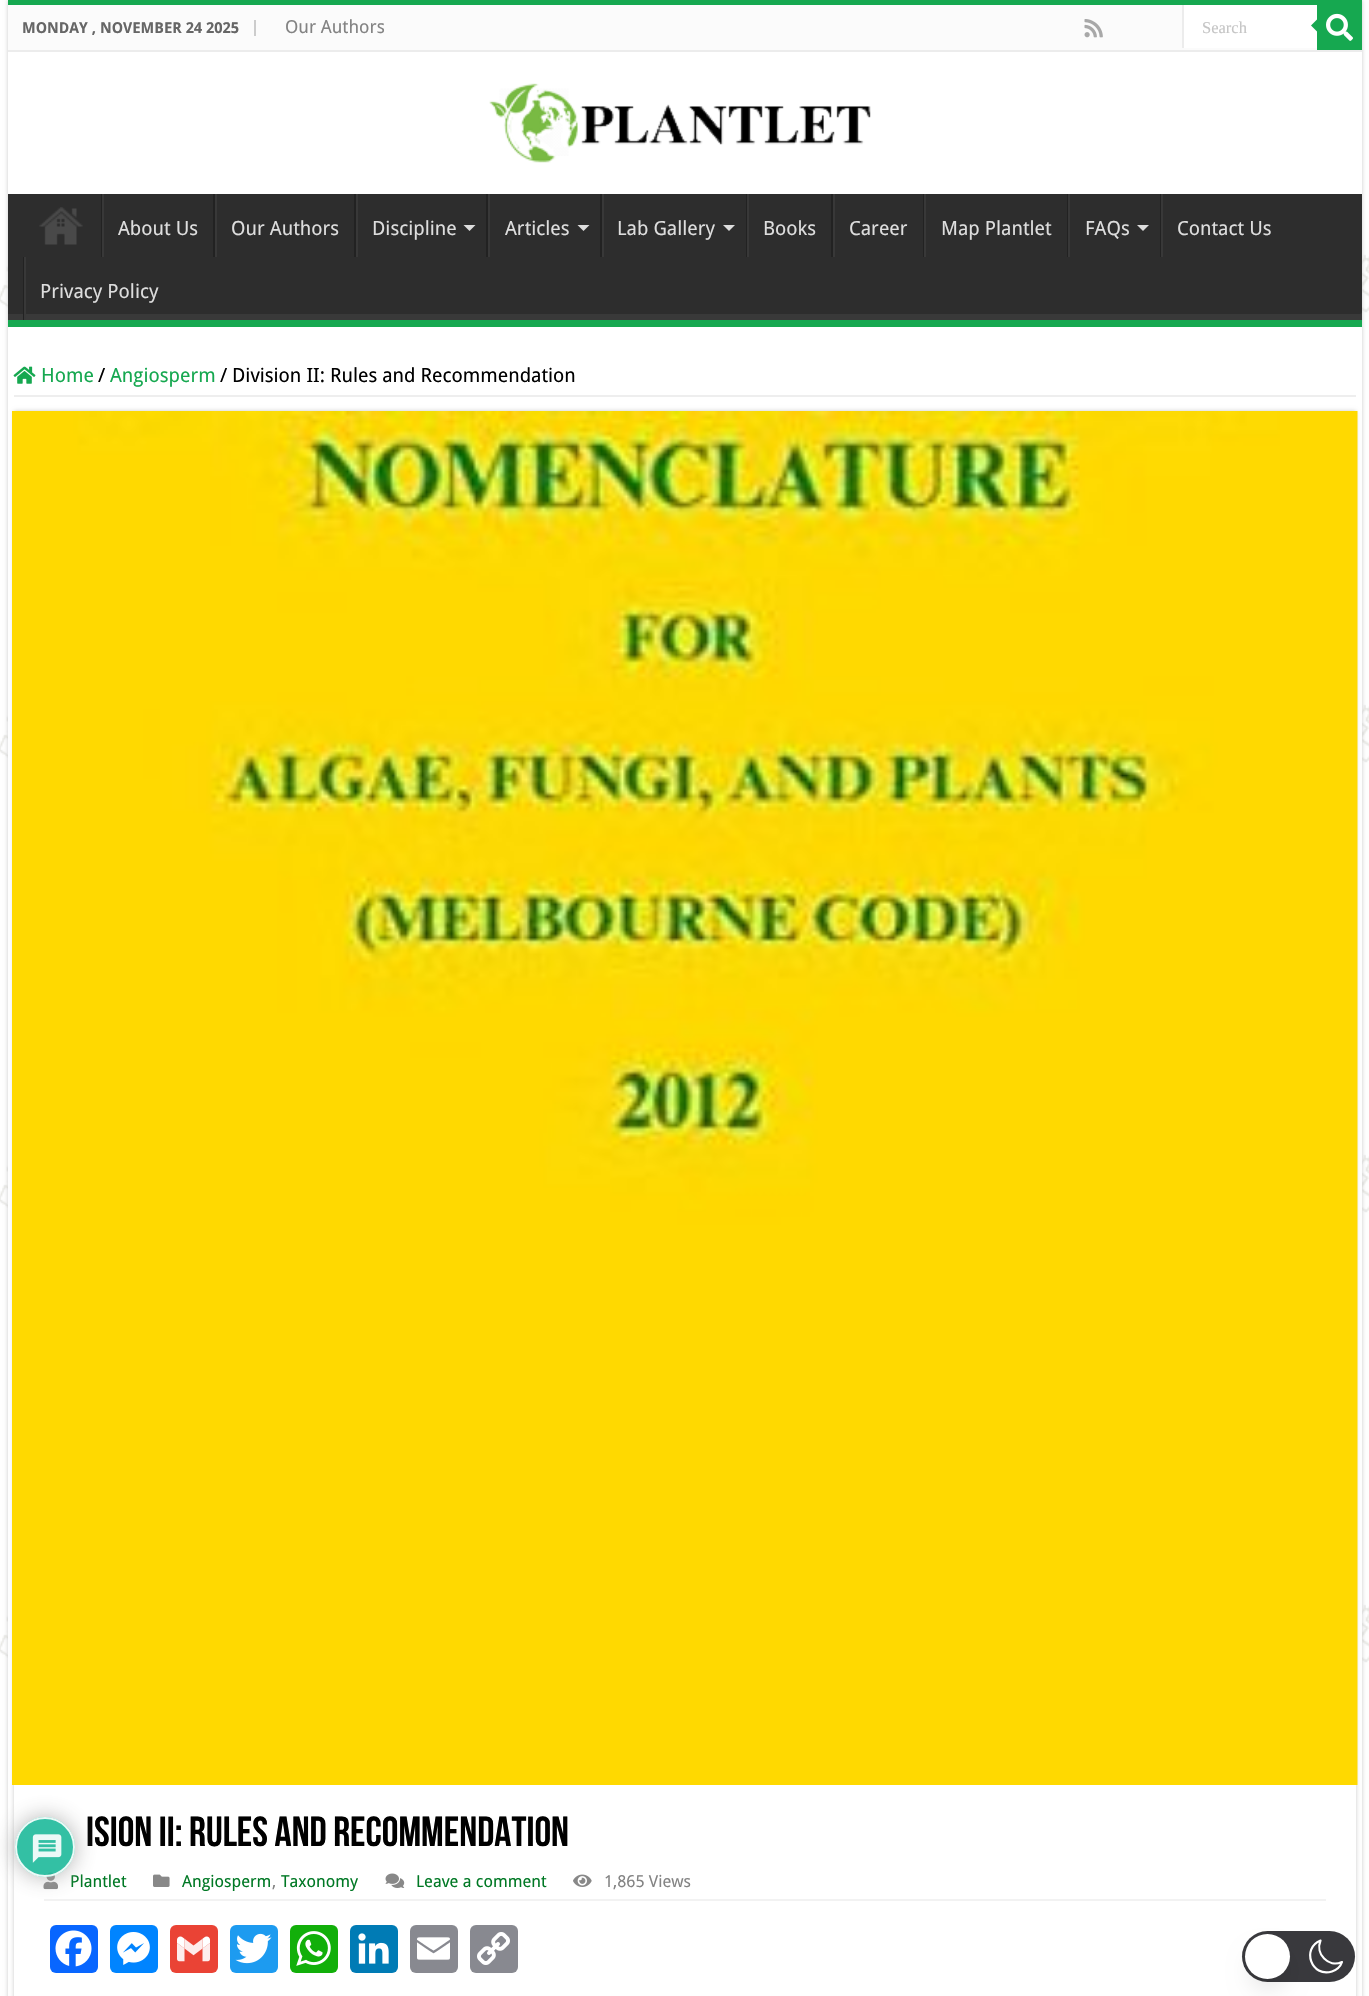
#include "include/core/SkBlurTypes.h"
#include "include/core/SkCanvas.h"
#include "include/core/SkData.h"
#include "include/core/SkFont.h"
#include "include/core/SkFontMgr.h"
#include "include/core/SkImage.h"
#include "include/core/SkMaskFilter.h"
#include "include/core/SkPaint.h"
#include "include/core/SkPathBuilder.h"
#include "include/core/SkTextBlob.h"
#include "include/effects/SkDashPathEffect.h"
#include "include/effects/SkGradientShader.h"
#include "include/utils/SkParsePath.h"

extern sk_sp<SkFontMgr> fontMgr;

void draw(SkCanvas* canvas) {
    SkPaint p;
    p.setAntiAlias(true);
    auto font = [&](const char* family, int weight, float size, bool italic = false) {
        SkFontStyle style(weight, SkFontStyle::kNormal_Width,
            italic ? SkFontStyle::kItalic_Slant : SkFontStyle::kUpright_Slant);
        SkFont result(fontMgr->matchFamilyStyle(family, style), size);
        result.setSubpixel(true);
        return result;
    };
    auto drawPhoto = [&](const char* path, float l, float t, float r, float b) {
        auto image = SkImages::DeferredFromEncodedData(SkData::MakeFromFileName(path));
        canvas->drawImageRect(image, SkRect::MakeLTRB(l, t, r, b), SkSamplingOptions());
    };
    canvas->clear(0xFFFFFFFF);
    drawPhoto("media/1.png", 0, 0, 1369, 1996);
    p.setColor(0xFFCACACA);
    p.setMaskFilter(SkMaskFilter::MakeBlur(kNormal_SkBlurStyle, 2));
    canvas->drawRect(SkRect::MakeLTRB(8, 0, 1362, 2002), p);
    p.setMaskFilter(nullptr);
    {
        const struct { float l, t, r, b; SkColor color; } items[] = {
            {8, 52, 1362, 1996, 0xFFFFFFFF},
            {8, 0, 1362, 5, 0xFF16A850},
            {8, 5, 1317, 50, 0xFFFBFBFB},
            {8, 50, 1362, 52, 0xFFECECEC},
            {254, 20, 256, 36, 0xFFCCCCCC},
        };
        for (auto [l, t, r, b, color] : items) {
            p.setColor(color);
            canvas->drawRect(SkRect::MakeLTRB(l, t, r, b), p);
        }
    }
    auto font1 = font("Droid Sans", 700, 15);
    p.setColor(0xFF666666);
    canvas->drawString("MONDAY , NOVEMBER 24 2025", 22, 33, font1, p);
    auto font2 = font("Droid Sans", 400, 18);
    p.setColor(0xFF838383);
    canvas->drawString("Our Authors", 285, 33, font2, p);
    drawPhoto("media/2.png", 1084, 19, 1103, 38);
    p.setColor(0xFFFFFFFF);
    canvas->drawRect(SkRect::MakeLTRB(1184, 5, 1317, 48), p);
    p.setColor(0xFFECECEC);
    canvas->drawRect(SkRect::MakeLTRB(1182, 5, 1184, 48), p);
    auto font3 = font("Liberation Serif", 400, 16.5f);
    p.setColor(0xFFC5C5C5);
    canvas->drawString("Search", 1202, 33, font3, p);
    p.setColor(0xFF16A850);
    canvas->drawRect(SkRect::MakeLTRB(1317, 5, 1362, 50), p);
    drawPhoto("media/3.png", 1326, 13, 1353, 41);
    canvas->drawPath(SkPathBuilder().moveTo(1317, 19.5f).lineTo(1317, 31.5f).lineTo(1311, 25.5f).close().detach(), p);
    drawPhoto("media/4.png", 489, 83, 871, 163);
    p.setColor(0xFF2D2D2D);
    canvas->drawRect(SkRect::MakeLTRB(8, 194, 1362, 314), p);
    canvas->save();
    canvas->clipRect(SkRect::MakeLTRB(8, 194, 1362, 320));
    p.setColor(0xFF393939);
    canvas->drawPath(SkPathBuilder(SkPathFillType::kEvenOdd).moveTo(-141, 45).lineTo(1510, 45).lineTo(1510, 468).lineTo(-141, 468).close().moveTo(6, 184).lineTo(1360, 184).cubicTo(1361, 184, 1362, 185, 1362, 186).lineTo(1362, 312).cubicTo(1362, 313, 1361, 314, 1360, 314).lineTo(6, 314).cubicTo(5, 314, 4, 313, 4, 312).lineTo(4, 186).cubicTo(4, 185, 5, 184, 6, 184).close().detach(), p);
    canvas->restore();
    p.setColor(0xFF16A850);
    canvas->drawRect(SkRect::MakeLTRB(8, 320, 1362, 327), p);
    drawPhoto("media/5.png", 39, 207, 83, 245);
    p.setColor(0xFF222222);
    canvas->drawRect(SkRect::MakeLTRB(101, 194, 102, 257), p);
    p.setColor(0xFF383838);
    canvas->drawRect(SkRect::MakeLTRB(102, 194, 104, 257), p);
    auto font4 = font("Droid Sans", 400, 19.5f);
    p.setColor(0xFFDDDDDD);
    canvas->drawString("About Us", 118, 235, font4, p);
    p.setColor(0xFF222222);
    canvas->drawRect(SkRect::MakeLTRB(213, 194, 215, 257), p);
    p.setColor(0xFF383838);
    canvas->drawRect(SkRect::MakeLTRB(215, 194, 217, 257), p);
    p.setColor(0xFFDDDDDD);
    canvas->drawString("Our Authors", 231, 235, font4, p);
    p.setColor(0xFF222222);
    canvas->drawRect(SkRect::MakeLTRB(354, 194, 356, 257), p);
    p.setColor(0xFF383838);
    canvas->drawRect(SkRect::MakeLTRB(356, 194, 358, 257), p);
    p.setColor(0xFFDDDDDD);
    canvas->drawString("Discipline", 372, 235, font4, p);
    canvas->drawPath(SkPathBuilder().moveTo(463.5f, 225).lineTo(475.5f, 225).lineTo(469.5f, 231).close().detach(), p);
    p.setColor(0xFF222222);
    canvas->drawRect(SkRect::MakeLTRB(486, 194, 488, 257), p);
    p.setColor(0xFF383838);
    canvas->drawRect(SkRect::MakeLTRB(488, 194, 490, 257), p);
    p.setColor(0xFFDDDDDD);
    canvas->drawString("Articles", 505, 235, font4, p);
    canvas->drawPath(SkPathBuilder().moveTo(577.5f, 225).lineTo(589.5f, 225).lineTo(583.5f, 231).close().detach(), p);
    p.setColor(0xFF222222);
    canvas->drawRect(SkRect::MakeLTRB(600, 194, 602, 257), p);
    p.setColor(0xFF383838);
    canvas->drawRect(SkRect::MakeLTRB(602, 194, 604, 257), p);
    p.setColor(0xFFDDDDDD);
    canvas->drawString("Lab Gallery", 617, 235, font4, p);
    canvas->drawPath(SkPathBuilder().moveTo(723, 225).lineTo(735, 225).lineTo(729, 231).close().detach(), p);
    p.setColor(0xFF222222);
    canvas->drawRect(SkRect::MakeLTRB(746, 194, 747, 257), p);
    p.setColor(0xFF383838);
    canvas->drawRect(SkRect::MakeLTRB(747, 194, 749, 257), p);
    p.setColor(0xFFDDDDDD);
    canvas->drawString("Books", 763, 235, font4, p);
    p.setColor(0xFF222222);
    canvas->drawRect(SkRect::MakeLTRB(831, 194, 833, 257), p);
    p.setColor(0xFF383838);
    canvas->drawRect(SkRect::MakeLTRB(833, 194, 835, 257), p);
    p.setColor(0xFFDDDDDD);
    canvas->drawString("Career", 849, 235, font4, p);
    p.setColor(0xFF222222);
    canvas->drawRect(SkRect::MakeLTRB(923, 194, 924, 257), p);
    p.setColor(0xFF383838);
    canvas->drawRect(SkRect::MakeLTRB(924, 194, 926, 257), p);
    p.setColor(0xFFDDDDDD);
    canvas->drawString("Map Plantlet", 941, 235, font4, p);
    p.setColor(0xFF222222);
    canvas->drawRect(SkRect::MakeLTRB(1067, 194, 1068, 257), p);
    p.setColor(0xFF383838);
    canvas->drawRect(SkRect::MakeLTRB(1068, 194, 1070, 257), p);
    p.setColor(0xFFDDDDDD);
    canvas->drawString("FAQs", 1085, 235, font4, p);
    canvas->drawPath(SkPathBuilder().moveTo(1137, 225).lineTo(1149, 225).lineTo(1143, 231).close().detach(), p);
    p.setColor(0xFF222222);
    canvas->drawRect(SkRect::MakeLTRB(1160, 194, 1161, 257), p);
    p.setColor(0xFF383838);
    canvas->drawRect(SkRect::MakeLTRB(1161, 194, 1163, 257), p);
    p.setColor(0xFFDDDDDD);
    canvas->drawString("Contact Us", 1177, 235, font4, p);
    p.setColor(0xFF222222);
    canvas->drawRect(SkRect::MakeLTRB(23, 257, 24, 320), p);
    p.setColor(0xFF383838);
    canvas->drawRect(SkRect::MakeLTRB(24, 257, 26, 320), p);
    p.setColor(0xFFDDDDDD);
    canvas->drawString("Privacy Policy", 40, 298, font4, p);
    p.setColor(0xFFEEEEEE);
    canvas->drawRect(SkRect::MakeLTRB(14, 395, 1356, 397), p);
    drawPhoto("media/6.png", 13, 366, 36, 384);
    p.setColor(0xFF16A850);
    canvas->drawString("Home", 41, 382, font4, p);
    p.setColor(0xFF000000);
    canvas->drawString("/", 98, 382, font4, p);
    p.setColor(0xFF16A850);
    canvas->drawString("Angiosperm", 110, 382, font4, p);
    p.setColor(0xFF000000);
    canvas->drawString("/", 220, 382, font4, p);
    canvas->drawString("Division II: Rules and Recommendation", 232, 382, font4, p);
    canvas->save();
    canvas->clipPath(SkPathBuilder(SkPathFillType::kEvenOdd).moveTo(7, 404).lineTo(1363, 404).lineTo(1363, 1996).lineTo(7, 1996).close().moveTo(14, 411).lineTo(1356, 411).lineTo(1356, 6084).lineTo(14, 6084).close().detach(), true);
    p.setColor(0xFFCACACA);
    p.setMaskFilter(SkMaskFilter::MakeBlur(kNormal_SkBlurStyle, 2));
    canvas->drawRect(SkRect::MakeLTRB(14, 411, 1356, 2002), p);
    p.setMaskFilter(nullptr);
    canvas->restore();
    drawPhoto("media/7.png", 12, 411, 1358, 1785);
    auto font5 = font("Bebas Neue", 700, 42);
    p.setColor(0xFF000000);
    canvas->drawString("ision II: Rules and Recommendation", 86, 1846, font5, p);
    p.setColor(0xFFF2F2F2);
    canvas->drawRect(SkRect::MakeLTRB(44, 1899, 1326, 1901), p);
    drawPhoto("media/8.png", 43, 1872, 58, 1890);
    auto font6 = font("Droid Sans", 400, 16.5f);
    p.setColor(0xFF007824);
    canvas->drawString("Plantlet", 70, 1887, font6, p);
    drawPhoto("media/9.png", 153, 1874, 170, 1887);
    canvas->drawString("Angiosperm", 182, 1887, font6, p);
    p.setColor(0xFF838383);
    canvas->drawString(",", 272, 1887, font6, p);
    p.setColor(0xFF007824);
    canvas->drawString("Taxonomy", 281, 1887, font6, p);
    drawPhoto("media/10.png", 385, 1873, 405, 1888);
    canvas->drawString("Leave a comment", 416, 1887, font6, p);
    drawPhoto("media/11.png", 573, 1874, 592, 1887);
    p.setColor(0xFF838383);
    canvas->drawString("1,865 Views", 604, 1887, font6, p);
    p.setColor(0xFF0866FF);
    canvas->drawRoundRect(SkRect::MakeLTRB(50, 1925, 98, 1973), 6, 6, p);
    drawPhoto("media/12.png", 55, 1930, 92, 1967);
    p.setColor(0xFF0084FF);
    canvas->drawRoundRect(SkRect::MakeLTRB(110, 1925, 158, 1973), 6, 6, p);
    drawPhoto("media/13.png", 117, 1932, 150, 1965);
    p.setColor(0xFFEA4335);
    canvas->drawRoundRect(SkRect::MakeLTRB(170, 1925, 218, 1973), 6, 6, p);
    drawPhoto("media/14.png", 177, 1936, 210, 1962);
    p.setColor(0xFF1D9BF0);
    canvas->drawRoundRect(SkRect::MakeLTRB(230, 1925, 278, 1973), 6, 6, p);
    drawPhoto("media/15.png", 235, 1933, 272, 1964);
    p.setColor(0xFF12AF0A);
    canvas->drawRoundRect(SkRect::MakeLTRB(290, 1925, 338, 1973), 6, 6, p);
    drawPhoto("media/16.png", 296, 1931, 331, 1966);
    p.setColor(0xFF007BB5);
    canvas->drawRoundRect(SkRect::MakeLTRB(350, 1925, 398, 1973), 6, 6, p);
    drawPhoto("media/17.png", 358, 1933, 389, 1964);
    p.setColor(0xFF888990);
    canvas->drawRoundRect(SkRect::MakeLTRB(410, 1925, 458, 1973), 6, 6, p);
    drawPhoto("media/18.png", 417, 1937, 450, 1960);
    canvas->drawRoundRect(SkRect::MakeLTRB(470, 1925, 518, 1973), 6, 6, p);
    drawPhoto("media/19.png", 477, 1932, 510, 1965);
    canvas->save();
    canvas->clipPath(SkPathBuilder(SkPathFillType::kEvenOdd).moveTo(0, 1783).lineTo(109, 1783).lineTo(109, 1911).lineTo(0, 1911).close().moveTo(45, 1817).cubicTo(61.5f, 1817, 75, 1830.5f, 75, 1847).cubicTo(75, 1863.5f, 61.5f, 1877, 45, 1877).cubicTo(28.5f, 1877, 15, 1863.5f, 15, 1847).cubicTo(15, 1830.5f, 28.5f, 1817, 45, 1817).close().detach(), true);
    p.setColor(0xE6AAAAAA);
    p.setMaskFilter(SkMaskFilter::MakeBlur(kNormal_SkBlurStyle, 11));
    canvas->drawRoundRect(SkRect::MakeLTRB(15, 1817, 75, 1877), 30, 30, p);
    p.setMaskFilter(nullptr);
    canvas->restore();
    p.setColor(0xE61DB99A);
    canvas->drawCircle(45, 1847, 30, p);
    p.setStyle(SkPaint::kStroke_Style);
    p.setStrokeWidth(2);
    p.setColor(0xE6FFFFFF);
    canvas->drawCircle(45, 1847, 29, p);
    drawPhoto("media/20.png", 32, 1834, 62, 1863);
    p.setStyle(SkPaint::kFill_Style);
    p.setColor(0xFF39393D);
    canvas->drawRoundRect(SkRect::MakeLTRB(1242, 1931, 1355, 1982), 25.5f, 25.5f, p);
    p.setStyle(SkPaint::kStroke_Style);
    p.setStrokeWidth(2.2f);
    p.setStrokeCap(SkPaint::kRound_Cap);
    p.setStrokeJoin(SkPaint::kRound_Join);
    p.setColor(0xFFFFFFFF);
    canvas->drawPath(SkPathBuilder().moveTo(1342, 1962).cubicTo(1328.5f, 1968, 1315, 1954, 1320.5f, 1940.5f).cubicTo(1301, 1948.5f, 1311.5f, 1978, 1332, 1971.5f).cubicTo(1336.5f, 1970, 1340.5f, 1966.5f, 1342, 1962).close().detach(), p);
    p.setStyle(SkPaint::kFill_Style);
    p.setColor(0x1A000000);
    p.setMaskFilter(SkMaskFilter::MakeBlur(kNormal_SkBlurStyle, 11));
    canvas->drawRoundRect(SkRect::MakeLTRB(1250, 1953, 1286, 1989), 18, 18, p);
    p.setMaskFilter(nullptr);
    p.setColor(0xFFFFFFFF);
    canvas->drawCircle(1267.5f, 1956.5f, 22.5f, p);
}
